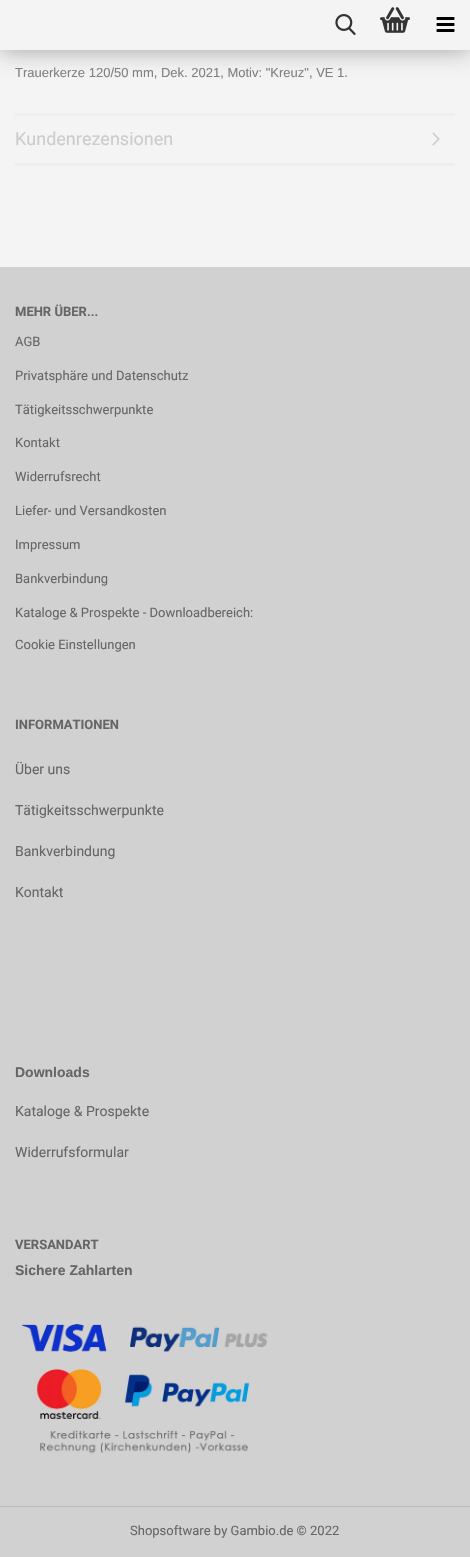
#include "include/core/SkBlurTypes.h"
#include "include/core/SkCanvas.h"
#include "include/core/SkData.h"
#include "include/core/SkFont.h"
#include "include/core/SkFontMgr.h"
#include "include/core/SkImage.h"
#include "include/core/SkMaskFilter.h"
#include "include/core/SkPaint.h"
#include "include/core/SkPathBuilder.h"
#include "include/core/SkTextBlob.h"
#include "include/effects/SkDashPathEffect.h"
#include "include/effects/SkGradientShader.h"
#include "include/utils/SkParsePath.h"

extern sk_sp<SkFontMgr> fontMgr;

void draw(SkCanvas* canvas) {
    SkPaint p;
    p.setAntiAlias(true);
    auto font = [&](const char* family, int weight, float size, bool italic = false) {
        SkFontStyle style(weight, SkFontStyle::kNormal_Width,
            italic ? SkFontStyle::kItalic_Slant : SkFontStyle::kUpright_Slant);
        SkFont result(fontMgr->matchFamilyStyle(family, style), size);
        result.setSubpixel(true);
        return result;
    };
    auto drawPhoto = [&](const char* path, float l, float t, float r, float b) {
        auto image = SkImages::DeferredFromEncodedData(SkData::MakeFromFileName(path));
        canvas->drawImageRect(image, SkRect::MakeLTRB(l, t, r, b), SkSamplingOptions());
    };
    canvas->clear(0xFFF4F4F4);
    p.setColor(0x59000000);
    p.setMaskFilter(SkMaskFilter::MakeBlur(kNormal_SkBlurStyle, 12.5f));
    canvas->drawRect(SkRect::MakeLTRB(0, 0, 470, 50), p);
    p.setMaskFilter(nullptr);
    p.setColor(0xFFF4F4F4);
    canvas->drawRect(SkRect::MakeLTRB(0, 0, 470, 50), p);
    drawPhoto("media/1.png", 335, 14, 356, 35);
    drawPhoto("media/2.png", 380, 7, 410, 33);
    drawPhoto("media/3.png", 436, 17, 455, 32);
    p.setColor(0xFFEEEEEE);
    canvas->drawRect(SkRect::MakeLTRB(15, 113, 455, 116), p);
    auto font1 = font("Liberation Sans", 400, 13);
    p.setColor(0xFF808080);
    canvas->drawString("Trauerkerze 120/50 mm, Dek. 2021, Motiv: \"Kreuz\", VE 1.", 15, 77, font1, p);
    p.setColor(0xFFEEEEEE);
    canvas->drawRect(SkRect::MakeLTRB(15, 163, 455, 166), p);
    auto font2 = font("Roboto", 400, 18);
    p.setColor(0xFFCCCCCC);
    canvas->drawString("Kundenrezensionen", 15, 145, font2, p);
    drawPhoto("media/4.png", 432, 132, 440, 146);
    p.setColor(0xFFD1D1D1);
    canvas->drawRect(SkRect::MakeLTRB(0, 267, 470, 1557), p);
    p.setColor(0xFFBBBBBB);
    canvas->drawRect(SkRect::MakeLTRB(0, 1506, 470, 1507), p);
    auto font3 = font("Roboto", 700, 13);
    p.setColor(0xFF666666);
    canvas->drawString("MEHR ÜBER...", 15, 316, font3, p);
    auto font4 = font("Roboto", 400, 13);
    {
        const struct { const char* s; float x, y; } items[] = {
            {"AGB", 15, 346},
            {"Privatsphäre und Datenschutz", 15, 380},
            {"Tätigkeitsschwerpunkte", 15, 414},
            {"Kontakt", 15, 447},
            {"Widerrufsrecht", 15, 481},
            {"Liefer- und Versandkosten", 15, 515},
            {"Impressum", 15, 549},
            {"Bankverbindung", 15, 583},
            {"Kataloge & Prospekte - Downloadbereich:", 15, 617},
            {"Cookie Einstellungen", 15, 649},
        };
        for (auto [s, x, y] : items) {
            canvas->drawString(s, x, y, font4, p);
        }
    }
    canvas->drawString("INFORMATIONEN", 15, 729, font3, p);
    auto font5 = font("Roboto", 400, 14);
    {
        const struct { const char* s; float x, y; } items[] = {
            {"Über uns", 15, 774},
            {"Tätigkeitsschwerpunkte", 15, 815},
            {"Bankverbindung", 15, 856},
            {"Kontakt", 15, 897},
        };
        for (auto [s, x, y] : items) {
            canvas->drawString(s, x, y, font5, p);
        }
    }
    auto font6 = font("Liberation Sans", 700, 14);
    canvas->drawString("Downloads", 15, 1077, font6, p);
    canvas->drawString("Kataloge & Prospekte", 15, 1116, font5, p);
    canvas->drawString("Widerrufsformular", 15, 1157, font5, p);
    canvas->drawString("VERSANDART", 15, 1249, font3, p);
    canvas->drawString("Sichere Zahlarten", 15, 1275, font6, p);
    drawPhoto("media/5.png", 19, 1324, 268, 1454);
    canvas->drawString("Shopsoftware by Gambio.de © 2022", 130, 1535, font4, p);
}
